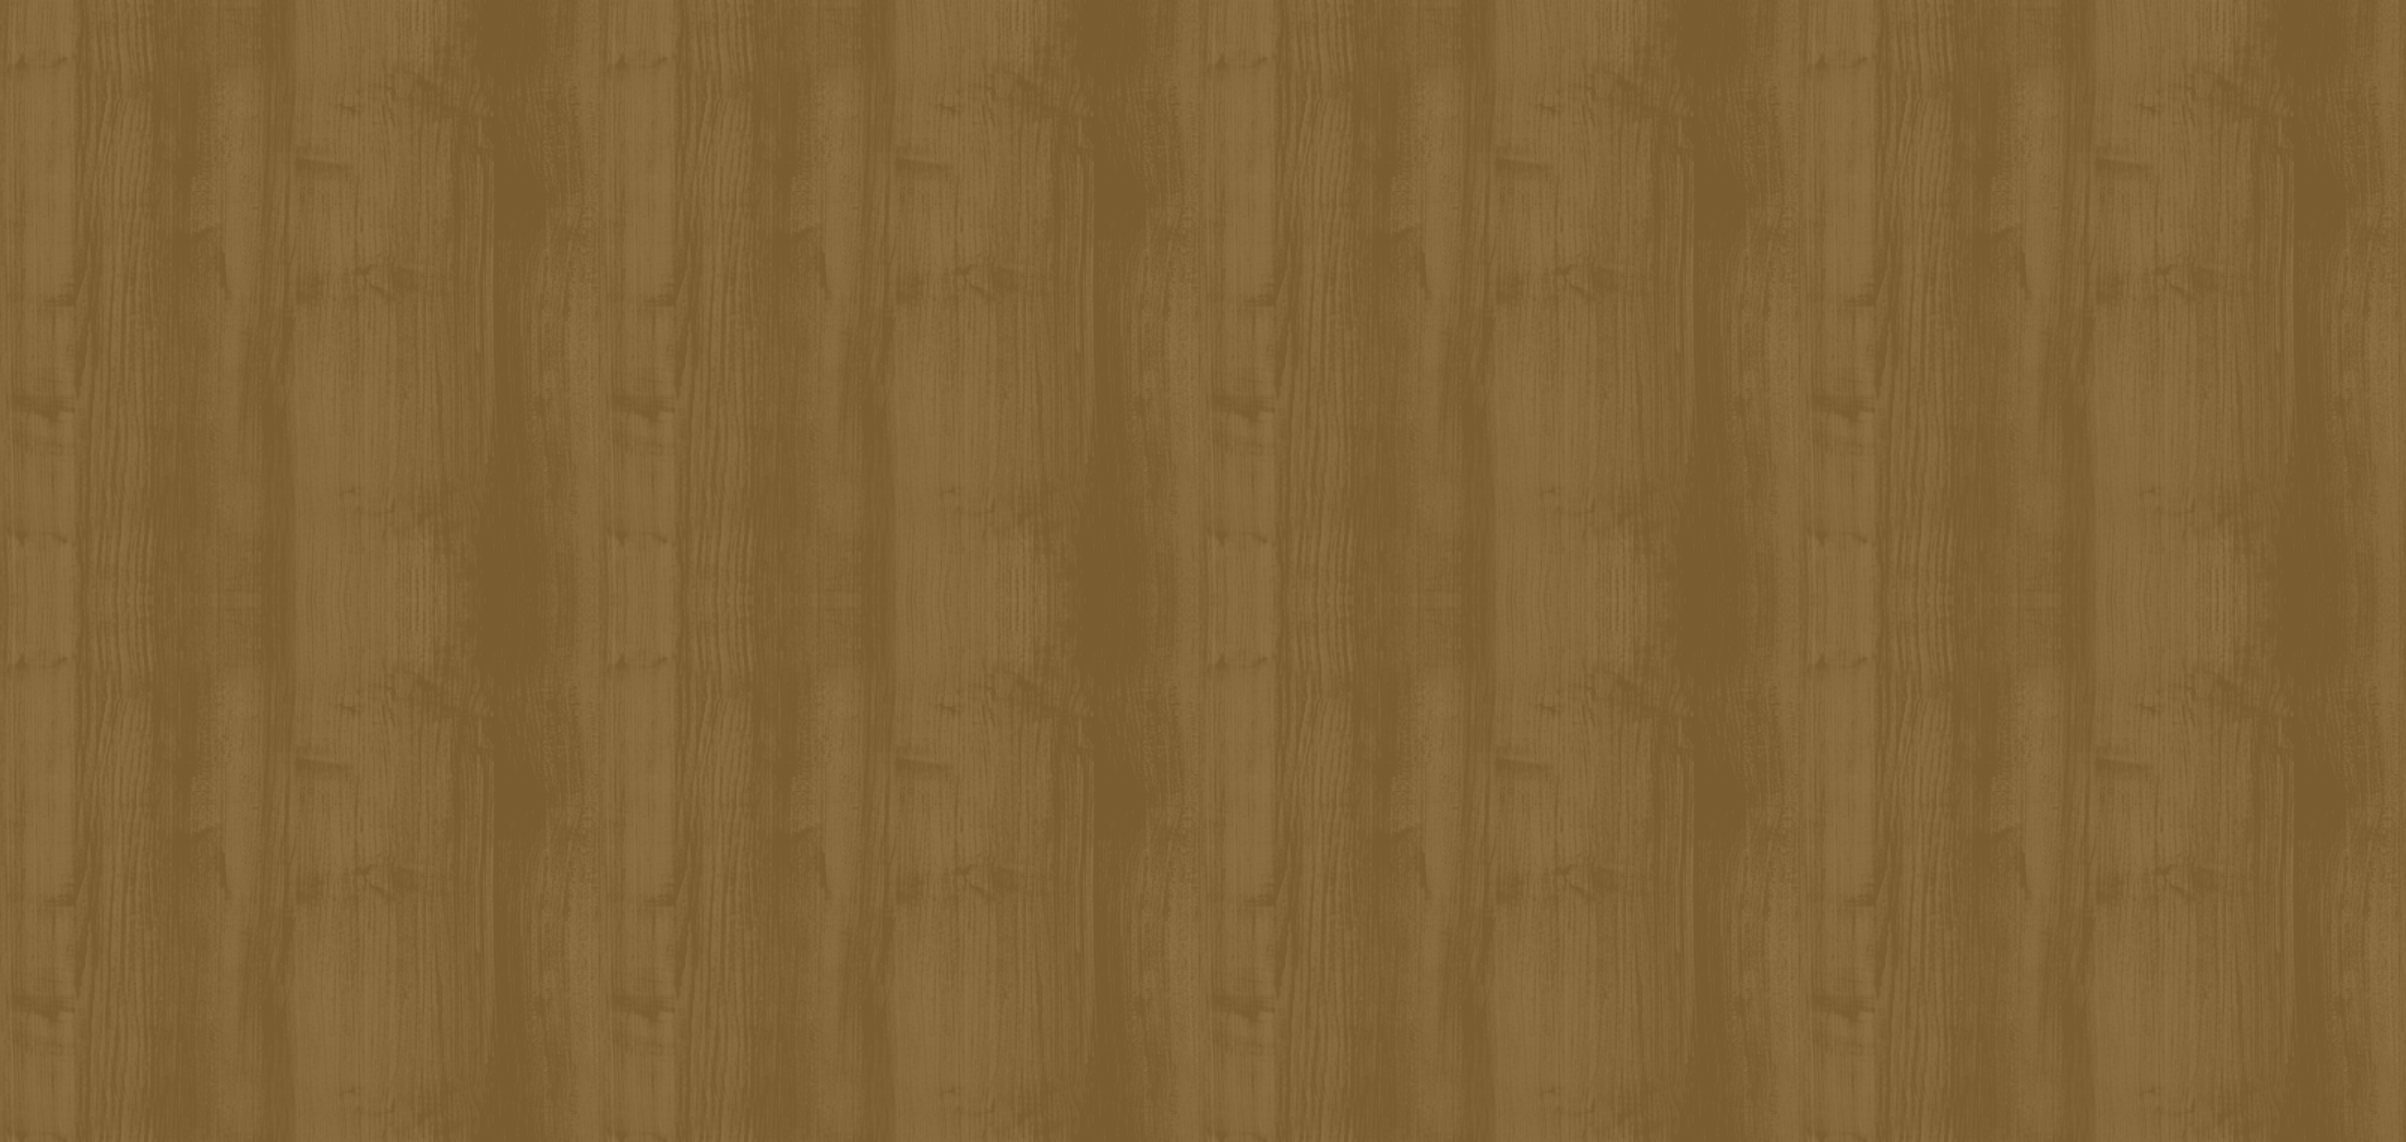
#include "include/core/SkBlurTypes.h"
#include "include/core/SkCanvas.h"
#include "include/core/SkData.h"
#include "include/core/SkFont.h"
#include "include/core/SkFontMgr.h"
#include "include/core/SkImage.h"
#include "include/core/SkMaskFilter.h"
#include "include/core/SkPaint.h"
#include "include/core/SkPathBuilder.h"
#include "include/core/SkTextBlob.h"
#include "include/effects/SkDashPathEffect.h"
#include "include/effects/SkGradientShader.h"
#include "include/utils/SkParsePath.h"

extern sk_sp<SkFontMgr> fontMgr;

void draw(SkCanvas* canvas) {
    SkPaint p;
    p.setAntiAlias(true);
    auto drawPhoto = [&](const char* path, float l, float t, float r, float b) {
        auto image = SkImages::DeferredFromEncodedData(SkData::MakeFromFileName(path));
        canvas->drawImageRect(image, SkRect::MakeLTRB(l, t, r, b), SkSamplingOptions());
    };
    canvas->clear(0xFF886636);
    drawPhoto("media/1.png", 0, 0, 2406, 1142);
}
